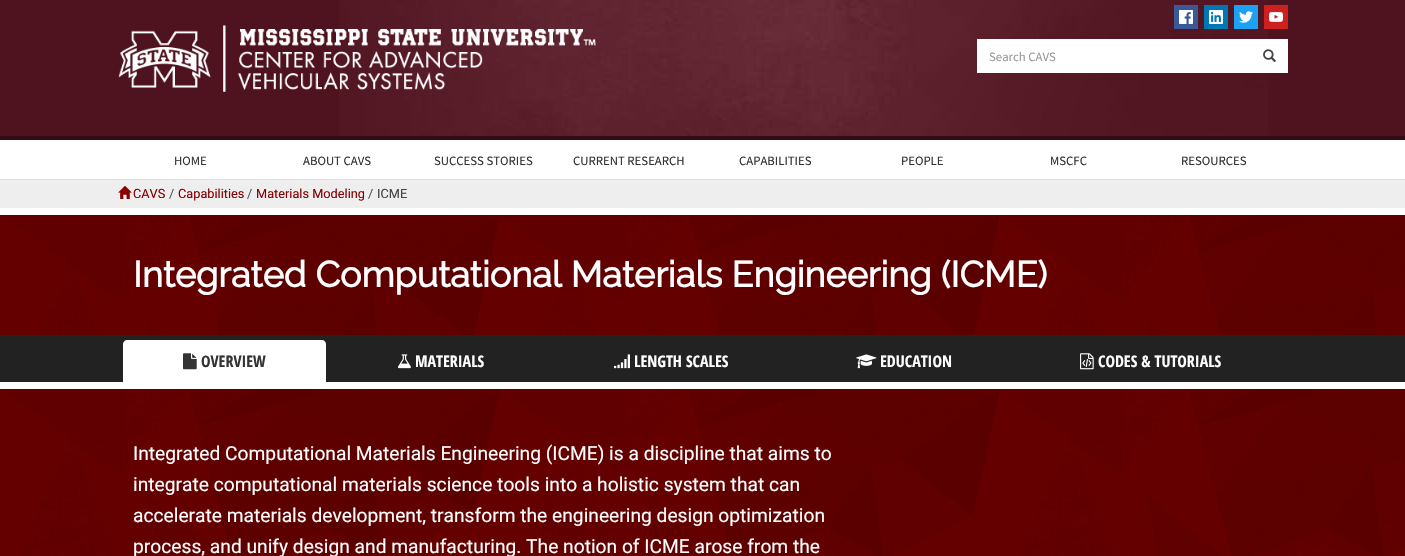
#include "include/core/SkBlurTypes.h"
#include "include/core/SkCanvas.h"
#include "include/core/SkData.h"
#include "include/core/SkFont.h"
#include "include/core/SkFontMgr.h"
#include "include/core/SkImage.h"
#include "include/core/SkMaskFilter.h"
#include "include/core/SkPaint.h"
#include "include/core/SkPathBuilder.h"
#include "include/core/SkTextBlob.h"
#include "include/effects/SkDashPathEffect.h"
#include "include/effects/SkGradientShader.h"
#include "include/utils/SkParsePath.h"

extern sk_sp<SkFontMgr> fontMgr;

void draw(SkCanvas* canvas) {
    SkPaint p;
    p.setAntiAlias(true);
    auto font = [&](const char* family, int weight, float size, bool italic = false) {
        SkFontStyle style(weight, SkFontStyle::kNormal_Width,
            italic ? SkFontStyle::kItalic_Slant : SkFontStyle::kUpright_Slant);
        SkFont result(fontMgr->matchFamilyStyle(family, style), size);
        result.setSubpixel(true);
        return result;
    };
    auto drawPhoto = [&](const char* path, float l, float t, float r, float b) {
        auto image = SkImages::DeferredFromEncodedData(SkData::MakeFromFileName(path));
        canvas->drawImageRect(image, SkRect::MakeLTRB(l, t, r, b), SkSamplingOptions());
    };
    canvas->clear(0xFFFFFFFF);
    p.setColor(0xFF4F131F);
    canvas->drawRect(SkRect::MakeLTRB(0, 0, 1405, 136), p);
    drawPhoto("media/1.png", 339, 0, 1268, 136);
    p.setColor(0xFF320C14);
    canvas->drawRect(SkRect::MakeLTRB(0, 136, 1405, 140), p);
    drawPhoto("media/2.png", 118, 25, 596, 92);
    p.setColor(0xFF3B5998);
    canvas->drawRect(SkRect::MakeLTRB(1174, 5, 1198, 29), p);
    drawPhoto("media/3.png", 1179, 10, 1193, 24);
    p.setColor(0xFF0077B5);
    canvas->drawRect(SkRect::MakeLTRB(1204, 5, 1228, 29), p);
    drawPhoto("media/4.png", 1209, 10, 1223, 24);
    p.setColor(0xFF1DA1F2);
    canvas->drawRect(SkRect::MakeLTRB(1234, 5, 1258, 29), p);
    drawPhoto("media/5.png", 1239, 11, 1253, 23);
    p.setColor(0xFFCD201F);
    canvas->drawRect(SkRect::MakeLTRB(1264, 5, 1288, 29), p);
    drawPhoto("media/6.png", 1269, 12, 1283, 22);
    p.setColor(0xFFFFFFFF);
    canvas->drawRect(SkRect::MakeLTRB(977, 39, 1288, 73), p);
    drawPhoto("media/7.png", 1263, 49, 1276, 62);
    auto font1 = font("Source Sans Pro", 400, 12.75f);
    p.setColor(0xFF999999);
    canvas->drawString("Search CAVS", 989, 61, font1, p);
    p.setColor(0xFFDDDDDD);
    canvas->drawRect(SkRect::MakeLTRB(0, 179, 1405, 180), p);
    p.setColor(0xFF333333);
    {
        const struct { const char* s; float x, y; } items[] = {
            {"HOME", 174, 165},
            {"ABOUT CAVS", 303, 165},
            {"SUCCESS STORIES", 434, 165},
            {"CURRENT RESEARCH", 573, 165},
            {"CAPABILITIES", 739, 165},
            {"PEOPLE", 901, 165},
            {"MSCFC", 1050, 165},
            {"RESOURCES", 1181, 165},
        };
        for (auto [s, x, y] : items) {
            canvas->drawString(s, x, y, font1, p);
        }
    }
    p.setColor(0xFFEEEEEE);
    canvas->drawRect(SkRect::MakeLTRB(0, 180, 1405, 208), p);
    drawPhoto("media/8.png", 118, 185, 132, 199);
    auto font2 = font("Roboto", 400, 12.75f);
    p.setColor(0xFF880000);
    canvas->drawString("CAVS", 133, 198, font2, p);
    p.setColor(0xFF555555);
    canvas->drawString("/", 169, 198, font2, p);
    p.setColor(0xFF880000);
    canvas->drawString("Capabilities", 178, 198, font2, p);
    p.setColor(0xFF555555);
    canvas->drawString("/", 247, 198, font2, p);
    p.setColor(0xFF880000);
    canvas->drawString("Materials Modeling", 256, 198, font2, p);
    p.setColor(0xFF555555);
    canvas->drawString("/", 368, 198, font2, p);
    p.setColor(0xFF444444);
    canvas->drawString("ICME", 377, 198, font2, p);
    drawPhoto("media/9.png", 0, 215, 1405, 335);
    auto font3 = font("Raleway", 700, 36);
    p.setColor(0xFFFFFFFF);
    canvas->drawString("Integrated Computational Materials Engineering (ICME)", 133, 287, font3, p);
    p.setColor(0xFF222222);
    canvas->drawRect(SkRect::MakeLTRB(0, 335, 1405, 382), p);
    p.setColor(0xFFFFFFFF);
    canvas->drawPath(SkPathBuilder().moveTo(127, 340).lineTo(322, 340).cubicTo(324, 340, 326, 342, 326, 344).lineTo(326, 382).lineTo(123, 382).lineTo(123, 344).cubicTo(123, 342, 125, 340, 127, 340).close().detach(), p);
    drawPhoto("media/10.png", 183, 353, 197, 370);
    auto font4 = font("Open Sans Condensed", 700, 16);
    p.setColor(0xFF333333);
    canvas->drawString("OVERVIEW", 201, 367, font4, p);
    drawPhoto("media/11.png", 398, 354, 411, 369);
    p.setColor(0xFFFFFFFF);
    canvas->drawString("MATERIALS", 415, 367, font4, p);
    drawPhoto("media/12.png", 614, 354, 630, 369);
    canvas->drawString("LENGTH SCALES", 634, 367, font4, p);
    drawPhoto("media/13.png", 856, 354, 877, 369);
    canvas->drawString("EDUCATION", 880, 367, font4, p);
    drawPhoto("media/14.png", 1080, 353, 1094, 370);
    canvas->drawString("CODES & TUTORIALS", 1098, 367, font4, p);
    drawPhoto("media/15.png", 0, 389, 1405, 556);
    auto font5 = font("Roboto", 400, 19.2f);
    {
        const struct { const char* s; float x, y; } items[] = {
            {"Integrated Computational Materials Engineering (ICME) is a discipline that aims to", 133, 460},
            {"integrate computational materials science tools into a holistic system that can", 133, 491},
            {"accelerate materials development, transform the engineering design optimization", 133, 522},
            {"process, and unify design and manufacturing. The notion of ICME arose from the", 133, 553},
        };
        for (auto [s, x, y] : items) {
            canvas->drawString(s, x, y, font5, p);
        }
    }
}
